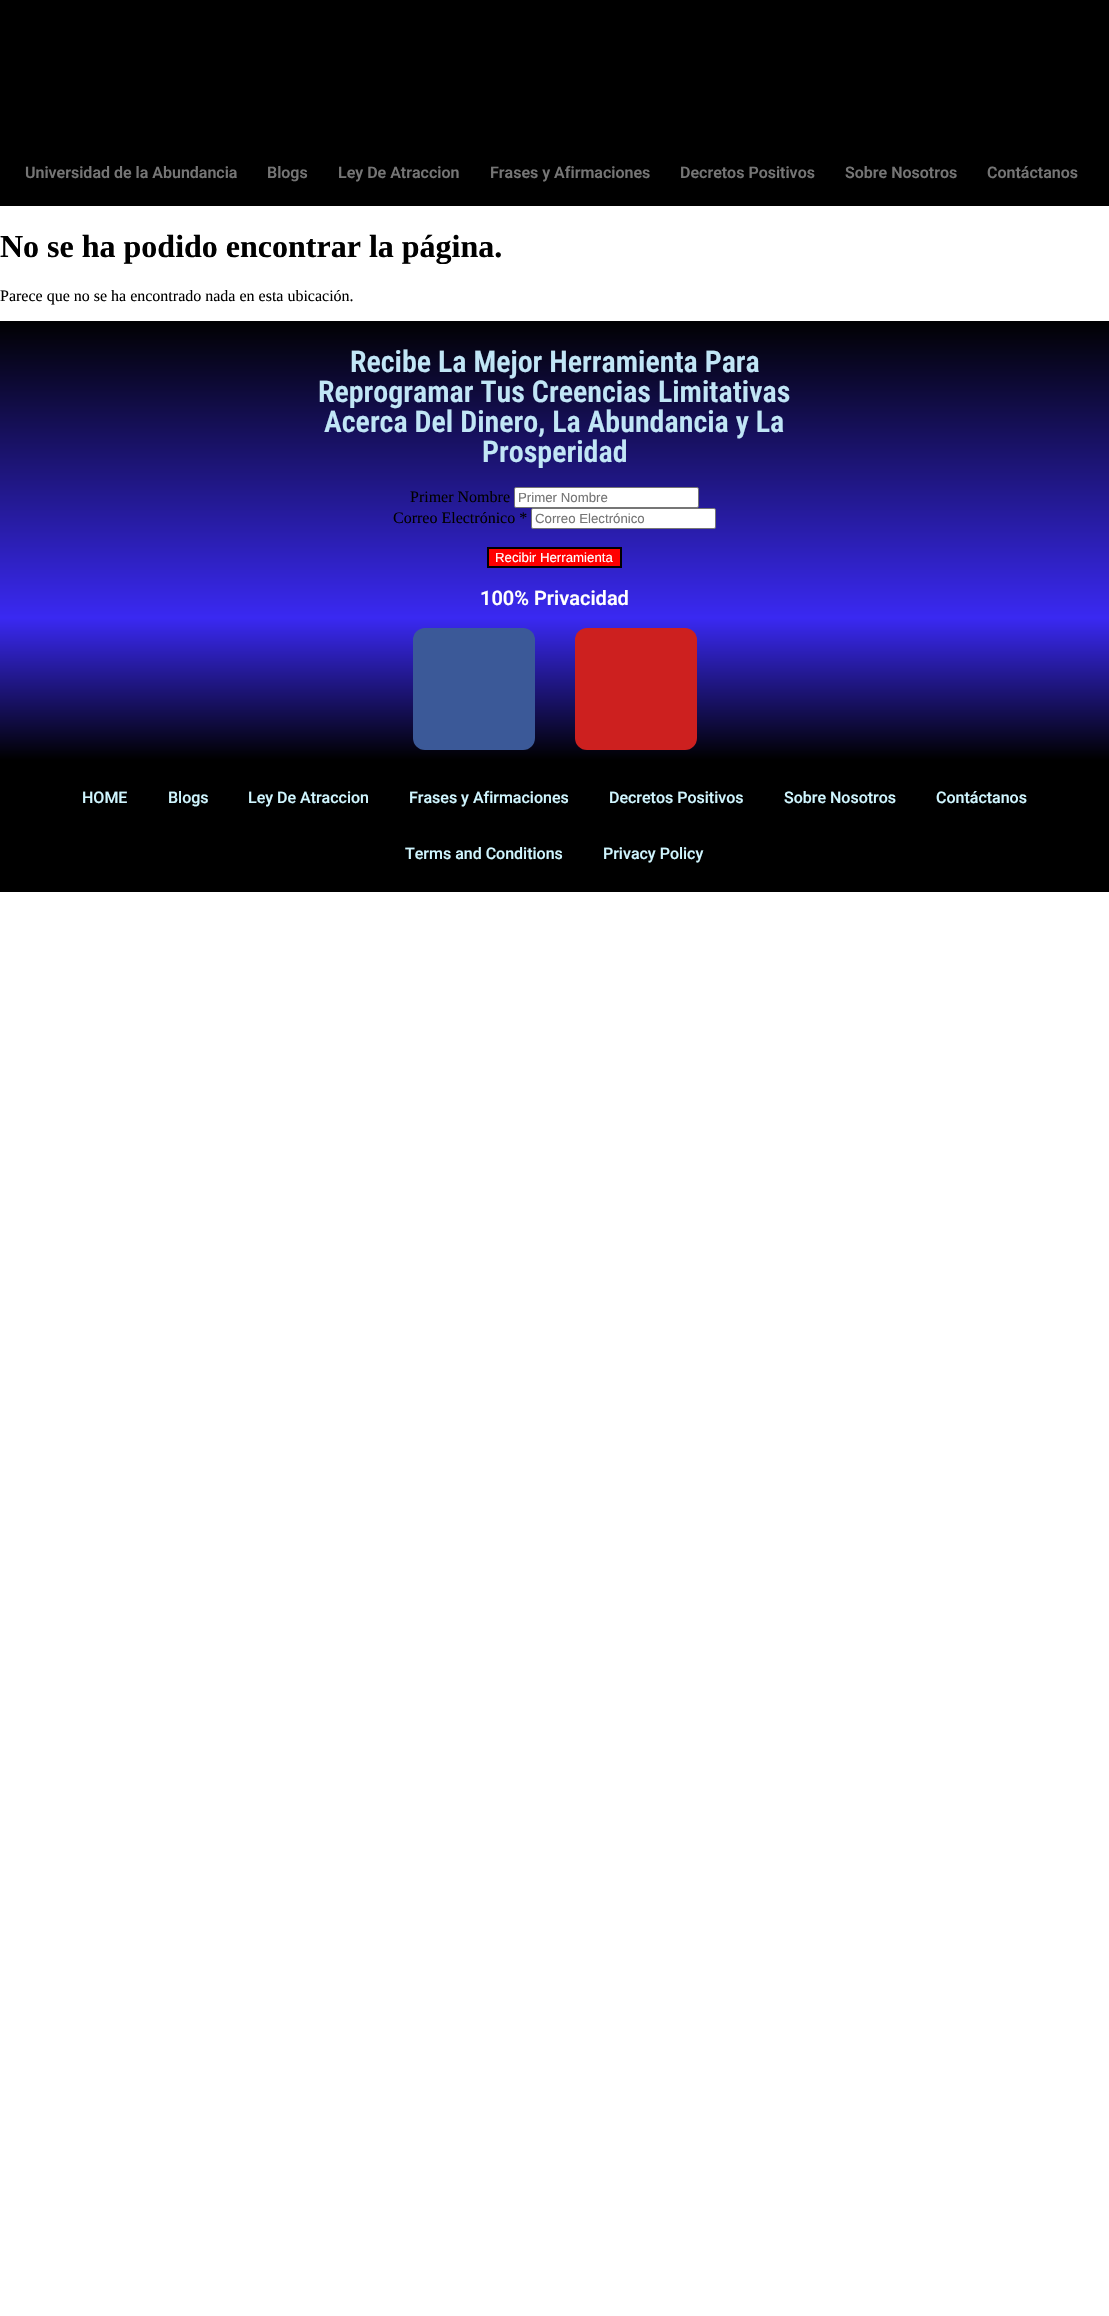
#include "include/core/SkBlurTypes.h"
#include "include/core/SkCanvas.h"
#include "include/core/SkData.h"
#include "include/core/SkFont.h"
#include "include/core/SkFontMgr.h"
#include "include/core/SkImage.h"
#include "include/core/SkMaskFilter.h"
#include "include/core/SkPaint.h"
#include "include/core/SkPathBuilder.h"
#include "include/core/SkTextBlob.h"
#include "include/effects/SkDashPathEffect.h"
#include "include/effects/SkGradientShader.h"
#include "include/utils/SkParsePath.h"

extern sk_sp<SkFontMgr> fontMgr;

void draw(SkCanvas* canvas) {
    SkPaint p;
    p.setAntiAlias(true);
    auto font = [&](const char* family, int weight, float size, bool italic = false) {
        SkFontStyle style(weight, SkFontStyle::kNormal_Width,
            italic ? SkFontStyle::kItalic_Slant : SkFontStyle::kUpright_Slant);
        SkFont result(fontMgr->matchFamilyStyle(family, style), size);
        result.setSubpixel(true);
        return result;
    };
    canvas->clear(0xFFFFFFFF);
    p.setColor(0xFF000000);
    canvas->drawRect(SkRect::MakeLTRB(0, 0, 1109, 206), p);
    auto font1 = font("Roboto", 600, 16);
    p.setColor(0xFF757575);
    {
        const struct { const char* s; float x, y; } items[] = {
            {"Universidad de la Abundancia", 25, 178},
            {"Blogs", 267, 178},
            {"Ley De Atraccion", 338, 178},
            {"Frases y Afirmaciones", 490, 178},
            {"Decretos Positivos", 680, 178},
            {"Sobre Nosotros", 845, 178},
            {"Contáctanos", 987, 178},
        };
        for (auto [s, x, y] : items) {
            canvas->drawString(s, x, y, font1, p);
        }
    }
    auto font2 = font("Liberation Serif", 700, 32);
    p.setColor(0xFF000000);
    canvas->drawString("No se ha podido encontrar la página.", 0, 257, font2, p);
    auto font3 = font("Liberation Serif", 400, 16);
    canvas->drawString("Parece que no se ha encontrado nada en esta ubicación.", 0, 301, font3, p);
    {
        const SkColor colors[] = {0xFF010102, 0xFF3A29F2};
        const float stops[] = {0, 1};
        const SkPoint ends[] = {{555, 321}, {555, 618}};
        p.setShader(SkGradientShader::MakeLinear(ends, colors, stops, 2, SkTileMode::kClamp));
        p.setAlpha(255);
    }
    canvas->drawRect(SkRect::MakeLTRB(0, 321, 1109, 618), p);
    auto font4 = font("Roboto Condensed", 600, 30);
    p.setShader(nullptr);
    p.setColor(0xFFC1E6F6);
    {
        const struct { const char* s; float x, y; } items[] = {
            {"Recibe La Mejor Herramienta Para", 350, 372},
            {"Reprogramar Tus Creencias Limitativas", 318, 402},
            {"Acerca Del Dinero, La Abundancia y La", 324, 432},
            {"Prosperidad", 482, 462},
        };
        for (auto [s, x, y] : items) {
            canvas->drawString(s, x, y, font4, p);
        }
    }
    p.setColor(0xFF000000);
    canvas->drawString("Primer Nombre", 410, 502, font3, p);
    p.setColor(0xFFFFFFFF);
    canvas->drawRoundRect(SkRect::MakeLTRB(514.5f, 487.5f, 698.5f, 507.5f), 1.5f, 1.5f, p);
    p.setStyle(SkPaint::kStroke_Style);
    p.setStrokeWidth(1);
    p.setColor(0xFF767676);
    canvas->drawRoundRect(SkRect::MakeLTRB(514.5f, 487.5f, 698.5f, 507.5f), 1.5f, 1.5f, p);
    auto font5 = font("Liberation Sans", 400, 13.25f);
    p.setStyle(SkPaint::kFill_Style);
    p.setColor(0xFF757575);
    canvas->drawString("Primer Nombre", 518, 502, font5, p);
    p.setColor(0xFF000000);
    canvas->drawString("Correo Electrónico *", 393, 523, font3, p);
    p.setColor(0xFFFFFFFF);
    canvas->drawRoundRect(SkRect::MakeLTRB(531.5f, 508.5f, 715.5f, 528.5f), 1.5f, 1.5f, p);
    p.setStyle(SkPaint::kStroke_Style);
    p.setColor(0xFF767676);
    canvas->drawRoundRect(SkRect::MakeLTRB(531.5f, 508.5f, 715.5f, 528.5f), 1.5f, 1.5f, p);
    p.setStyle(SkPaint::kFill_Style);
    p.setColor(0xFF757575);
    canvas->drawString("Correo Electrónico", 535, 523, font5, p);
    p.setColor(0xFFFF0000);
    canvas->drawRect(SkRect::MakeLTRB(488, 548, 621, 567), p);
    p.setStyle(SkPaint::kStroke_Style);
    p.setStrokeWidth(2);
    p.setColor(0xFF000000);
    canvas->drawRect(SkRect::MakeLTRB(488, 548, 621, 567), p);
    p.setStyle(SkPaint::kFill_Style);
    p.setColor(0xFFFFFFFF);
    canvas->drawString("Recibir Herramienta", 495, 562, font5, p);
    auto font6 = font("Roboto", 600, 20);
    canvas->drawString("100% Privacidad", 480, 605, font6, p);
    {
        const SkColor colors[] = {0xFF3A29F2, 0xFF000000};
        const float stops[] = {0, 1};
        const SkPoint ends[] = {{555, 618}, {555, 760}};
        p.setShader(SkGradientShader::MakeLinear(ends, colors, stops, 2, SkTileMode::kClamp));
        p.setAlpha(255);
    }
    canvas->drawRect(SkRect::MakeLTRB(0, 618, 1109, 760), p);
    p.setShader(nullptr);
    p.setColor(0xFF3B5998);
    canvas->drawRoundRect(SkRect::MakeLTRB(413, 628, 535, 750), 12, 12, p);
    p.setColor(0xFFCD201F);
    canvas->drawRoundRect(SkRect::MakeLTRB(575, 628, 697, 750), 12, 12, p);
    p.setColor(0xFF000000);
    canvas->drawRect(SkRect::MakeLTRB(0, 760, 1109, 892), p);
    auto font7 = font("Roboto", 500, 16);
    p.setColor(0xFFD0F6FF);
    {
        const struct { const char* s; float x, y; } items[] = {
            {"HOME", 82, 803},
            {"Blogs", 168, 803},
            {"Ley De Atraccion", 248, 803},
            {"Frases y Afirmaciones", 409, 803},
            {"Decretos Positivos", 609, 803},
            {"Sobre Nosotros", 784, 803},
            {"Contáctanos", 936, 803},
            {"Terms and Conditions", 405, 859},
            {"Privacy Policy", 603, 859},
        };
        for (auto [s, x, y] : items) {
            canvas->drawString(s, x, y, font7, p);
        }
    }
}
